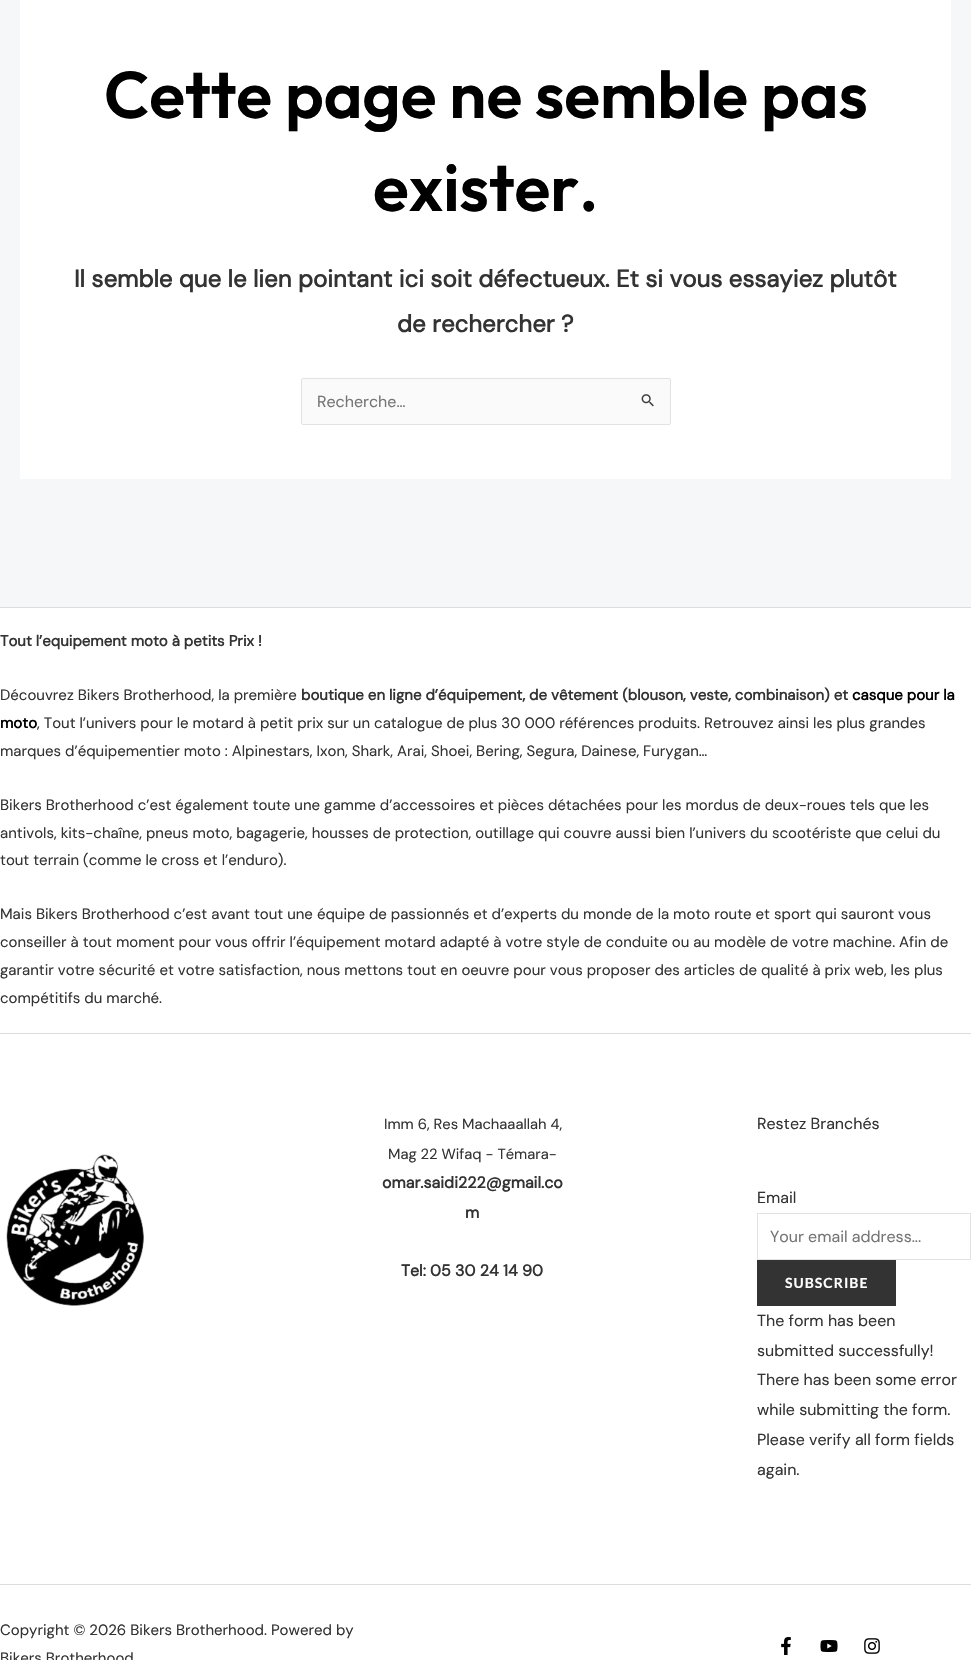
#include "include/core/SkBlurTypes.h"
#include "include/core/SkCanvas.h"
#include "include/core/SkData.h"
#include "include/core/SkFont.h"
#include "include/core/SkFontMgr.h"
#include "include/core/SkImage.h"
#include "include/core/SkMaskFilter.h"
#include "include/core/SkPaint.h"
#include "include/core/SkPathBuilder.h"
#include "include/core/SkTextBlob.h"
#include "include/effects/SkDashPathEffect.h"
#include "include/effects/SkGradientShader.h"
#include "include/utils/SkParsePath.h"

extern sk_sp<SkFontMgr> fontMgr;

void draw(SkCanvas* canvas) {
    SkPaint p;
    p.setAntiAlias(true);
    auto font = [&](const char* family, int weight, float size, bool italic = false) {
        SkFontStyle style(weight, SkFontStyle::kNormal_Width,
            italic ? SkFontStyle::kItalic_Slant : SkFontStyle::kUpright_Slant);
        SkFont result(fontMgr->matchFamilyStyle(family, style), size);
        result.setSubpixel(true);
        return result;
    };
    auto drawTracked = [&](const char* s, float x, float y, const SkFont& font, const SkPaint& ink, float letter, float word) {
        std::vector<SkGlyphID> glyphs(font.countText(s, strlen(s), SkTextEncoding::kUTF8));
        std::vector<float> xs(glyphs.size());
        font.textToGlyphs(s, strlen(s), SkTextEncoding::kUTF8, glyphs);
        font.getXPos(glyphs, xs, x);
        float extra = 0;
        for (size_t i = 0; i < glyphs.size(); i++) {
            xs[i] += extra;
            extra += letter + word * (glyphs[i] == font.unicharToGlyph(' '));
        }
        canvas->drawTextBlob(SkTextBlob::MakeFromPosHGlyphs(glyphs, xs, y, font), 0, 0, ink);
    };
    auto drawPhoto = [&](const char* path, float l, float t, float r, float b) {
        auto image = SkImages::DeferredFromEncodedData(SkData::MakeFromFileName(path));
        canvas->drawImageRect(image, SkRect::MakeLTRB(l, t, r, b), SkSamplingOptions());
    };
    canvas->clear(0xFFF5F7F9);
    p.setColor(0xFFFFFFFF);
    canvas->drawRect(SkRect::MakeLTRB(20, 0, 951, 479), p);
    auto font1 = font("Outfit", 600, 66);
    p.setColor(0xFF000000);
    canvas->drawString("Cette page ne semble pas", 104, 118, font1, p);
    canvas->drawString("exister.", 373, 211, font1, p);
    auto font2 = font("DM Sans", 700, 24);
    p.setColor(0xFF333333);
    canvas->drawString("Il semble que le lien pointant ici soit défectueux. Et si vous essayiez plutôt", 74, 287, font2, p);
    canvas->drawString("de rechercher ?", 397, 332, font2, p);
    p.setColor(0xFFFAFAFA);
    canvas->drawRoundRect(SkRect::MakeLTRB(301.5f, 378.5f, 670.5f, 424.5f), 1.5f, 1.5f, p);
    p.setStyle(SkPaint::kStroke_Style);
    p.setStrokeWidth(1);
    p.setColor(0xFFE2E2E2);
    canvas->drawRoundRect(SkRect::MakeLTRB(301.5f, 378.5f, 670.5f, 424.5f), 1.5f, 1.5f, p);
    auto font3 = font("DM Sans", 400, 16);
    p.setStyle(SkPaint::kFill_Style);
    p.setColor(0xFF757575);
    canvas->drawString("Recherche…", 317, 407, font3, p);
    drawPhoto("media/1.png", 641, 394, 654, 407);
    p.setColor(0xFFFFFFFF);
    canvas->drawRect(SkRect::MakeLTRB(0, 608, 971, 1660), p);
    p.setColor(0xFFDDDDDD);
    canvas->drawRect(SkRect::MakeLTRB(0, 607, 971, 608), p);
    auto font4 = font("DM Sans", 700, 15);
    p.setColor(0xFF333333);
    canvas->drawString("Tout l’equipement moto à petits Prix !", 0, 646, font4, p);
    auto font5 = font("DM Sans", 400, 15);
    canvas->drawString("Découvrez Bikers Brotherhood, la première", 0, 700, font5, p);
    canvas->drawString("boutique en ligne d’équipement, de vêtement (blouson, veste, combinaison) et", 301, 700, font4, p);
    p.setColor(0xFF000000);
    canvas->drawString("casque pour la", 852, 700, font4, p);
    canvas->drawString("moto", 0, 728, font4, p);
    p.setColor(0xFF333333);
    {
        const struct { const char* s; float x, y; } items[] = {
            {", Tout l’univers pour le motard à petit prix sur un catalogue de plus 30 000 références produits. Retrouvez ainsi les plus grandes", 37, 728},
            {"marques d’équipementier moto : Alpinestars, Ixon, Shark, Arai, Shoei, Bering, Segura, Dainese, Furygan…", 0, 756},
            {"Bikers Brotherhood c’est également toute une gamme d’accessoires et pièces détachées pour les mordus de deux-roues tels que les", 0, 810},
            {"antivols, kits-chaîne, pneus moto, bagagerie, housses de protection, outillage qui couvre aussi bien l’univers du scootériste que celui du", 0, 838},
            {"tout terrain (comme le cross et l’enduro).", 0, 865},
            {"Mais Bikers Brotherhood c’est avant tout une équipe de passionnés et d’experts du monde de la moto route et sport qui sauront vous", 0, 919},
            {"conseiller à tout moment pour vous offrir l’équipement motard adapté à votre style de conduite ou au modèle de votre machine. Afin de", 0, 947},
            {"garantir votre sécurité et votre satisfaction, nous mettons tout en oeuvre pour vous proposer des articles de qualité à prix web, les plus", 0, 975},
            {"compétitifs du marché.", 0, 1003},
        };
        for (auto [s, x, y] : items) {
            canvas->drawString(s, x, y, font5, p);
        }
    }
    p.setColor(0xFFDDDDDD);
    canvas->drawRect(SkRect::MakeLTRB(0, 1033, 971, 1034), p);
    drawPhoto("media/2.png", 6, 1154, 144, 1306);
    auto font6 = font("DM Sans", 400, 14.75f);
    p.setColor(0xFF333333);
    canvas->drawString("Imm 6, Res Machaaallah 4,", 384, 1129, font6, p);
    canvas->drawString("Mag 22 Wifaq - Témara-", 388, 1159, font6, p);
    auto font7 = font("DM Sans", 700, 16);
    {
        const struct { const char* s; float x, y; } items[] = {
            {"omar.saidi222@gmail.co", 382, 1188},
            {"m", 465, 1218},
            {"Tel: 05 30 24 14 90", 401, 1276},
        };
        for (auto [s, x, y] : items) {
            canvas->drawString(s, x, y, font7, p);
        }
    }
    canvas->drawString("Restez Branchés", 757, 1129, font3, p);
    canvas->drawString("Email", 757, 1203, font3, p);
    p.setStyle(SkPaint::kStroke_Style);
    p.setColor(0xFFE2E2E2);
    canvas->drawRect(SkRect::MakeLTRB(757.5f, 1213.5f, 970.5f, 1259.5f), p);
    p.setStyle(SkPaint::kFill_Style);
    p.setColor(0xFF757575);
    canvas->drawString("Your email address...", 770, 1242, font3, p);
    p.setColor(0xFF333333);
    canvas->drawRect(SkRect::MakeLTRB(757, 1260, 896, 1306), p);
    auto font8 = font("Lato", 700, 14);
    p.setColor(0xFFFFFFFF);
    drawTracked("SUBSCRIBE", 785, 1288, font8, p, 1, 0);
    p.setColor(0xFF333333);
    {
        const struct { const char* s; float x, y; } items[] = {
            {"The form has been", 757, 1326},
            {"submitted successfully!", 757, 1356},
            {"There has been some error", 757, 1385},
            {"while submitting the form.", 757, 1415},
            {"Please verify all form fields", 757, 1445},
            {"again.", 757, 1475},
        };
        for (auto [s, x, y] : items) {
            canvas->drawString(s, x, y, font3, p);
        }
    }
    p.setColor(0xFFDDDDDD);
    canvas->drawRect(SkRect::MakeLTRB(0, 1584, 971, 1585), p);
    p.setColor(0xFF333333);
    canvas->drawString("Copyright © 2026 Bikers Brotherhood. Powered by", 0, 1635, font5, p);
    canvas->drawString("Bikers Brotherhood", 0, 1663, font5, p);
    drawPhoto("media/3.png", 781, 1637, 791, 1655);
    drawPhoto("media/4.png", 820, 1640, 838, 1652);
    drawPhoto("media/5.png", 864, 1638, 880, 1654);
}
